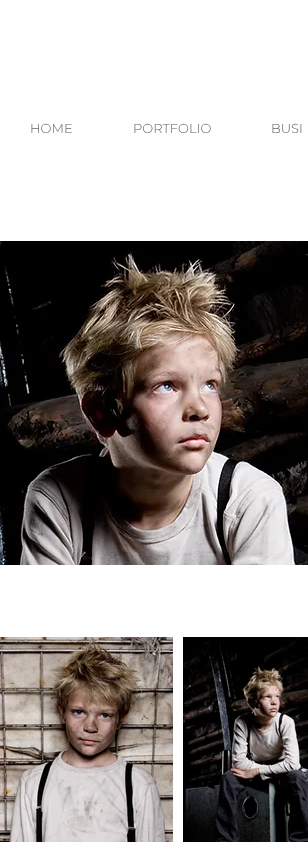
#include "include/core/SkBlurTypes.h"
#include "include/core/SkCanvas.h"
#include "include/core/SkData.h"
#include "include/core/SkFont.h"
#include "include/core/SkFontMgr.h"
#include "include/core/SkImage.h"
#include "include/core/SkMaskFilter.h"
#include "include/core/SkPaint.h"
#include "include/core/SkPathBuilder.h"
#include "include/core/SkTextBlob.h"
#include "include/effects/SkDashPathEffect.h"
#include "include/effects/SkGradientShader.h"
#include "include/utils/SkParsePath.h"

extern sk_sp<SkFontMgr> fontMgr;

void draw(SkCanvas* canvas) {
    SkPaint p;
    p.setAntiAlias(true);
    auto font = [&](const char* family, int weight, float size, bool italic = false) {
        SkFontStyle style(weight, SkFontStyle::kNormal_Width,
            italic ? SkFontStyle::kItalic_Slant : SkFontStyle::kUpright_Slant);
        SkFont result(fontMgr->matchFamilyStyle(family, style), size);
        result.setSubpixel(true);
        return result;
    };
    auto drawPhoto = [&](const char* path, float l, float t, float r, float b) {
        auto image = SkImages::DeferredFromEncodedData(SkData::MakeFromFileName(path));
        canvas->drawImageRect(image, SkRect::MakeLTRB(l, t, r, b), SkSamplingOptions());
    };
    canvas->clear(0xFFFFFFFF);
    auto font1 = font("Montserrat", 300, 13);
    p.setColor(0xFF717070);
    {
        const struct { const char* s; float x, y; } items[] = {
            {"HOME", 30, 133},
            {"PORTFOLIO", 133, 133},
            {"BUSI", 271, 133},
        };
        for (auto [s, x, y] : items) {
            canvas->drawString(s, x, y, font1, p);
        }
    }
    drawPhoto("media/1.png", 0, 241, 308, 565);
    drawPhoto("media/2.png", 0, 637, 173, 842);
    drawPhoto("media/3.png", 183, 637, 308, 842);
}
